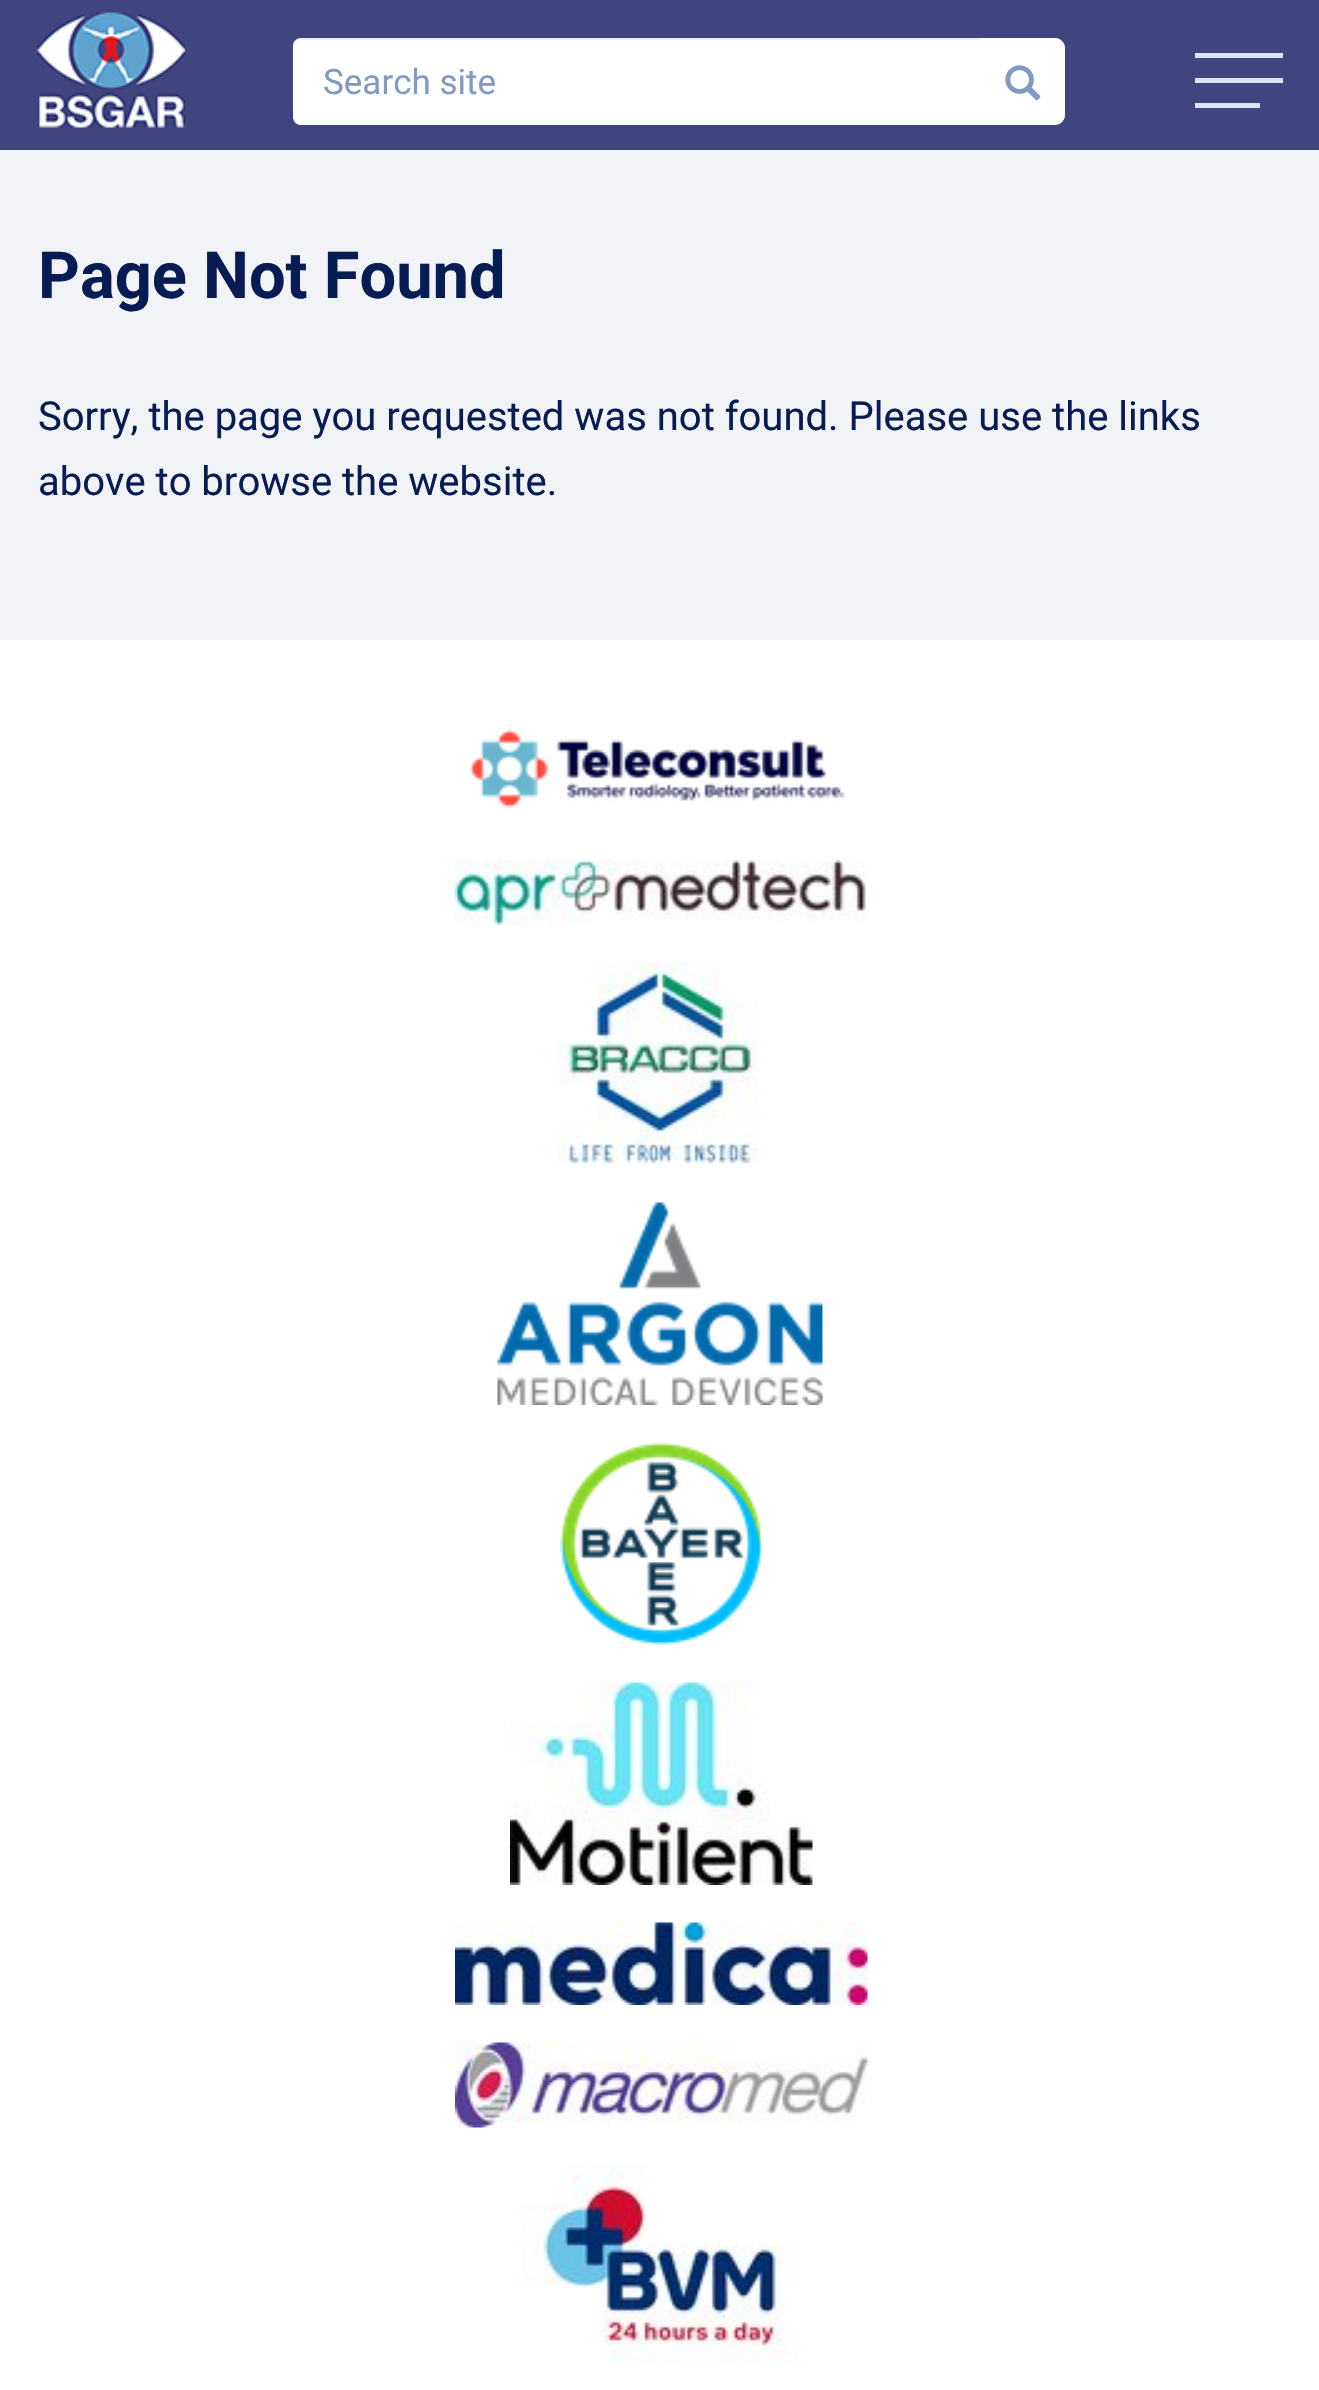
#include "include/core/SkBlurTypes.h"
#include "include/core/SkCanvas.h"
#include "include/core/SkData.h"
#include "include/core/SkFont.h"
#include "include/core/SkFontMgr.h"
#include "include/core/SkImage.h"
#include "include/core/SkMaskFilter.h"
#include "include/core/SkPaint.h"
#include "include/core/SkPathBuilder.h"
#include "include/core/SkTextBlob.h"
#include "include/effects/SkDashPathEffect.h"
#include "include/effects/SkGradientShader.h"
#include "include/utils/SkParsePath.h"

extern sk_sp<SkFontMgr> fontMgr;

void draw(SkCanvas* canvas) {
    SkPaint p;
    p.setAntiAlias(true);
    auto font = [&](const char* family, int weight, float size, bool italic = false) {
        SkFontStyle style(weight, SkFontStyle::kNormal_Width,
            italic ? SkFontStyle::kItalic_Slant : SkFontStyle::kUpright_Slant);
        SkFont result(fontMgr->matchFamilyStyle(family, style), size);
        result.setSubpixel(true);
        return result;
    };
    auto drawPhoto = [&](const char* path, float l, float t, float r, float b) {
        auto image = SkImages::DeferredFromEncodedData(SkData::MakeFromFileName(path));
        canvas->drawImageRect(image, SkRect::MakeLTRB(l, t, r, b), SkSamplingOptions());
    };
    canvas->clear(0xFF40457F);
    drawPhoto("media/1.png", 37, 12, 185, 128);
    p.setColor(0xFFFFFFFF);
    canvas->drawPath(SkPathBuilder().moveTo(301, 38).lineTo(980, 38).lineTo(980, 125).lineTo(301, 125).cubicTo(296.5f, 125, 293, 121.5f, 293, 117).lineTo(293, 46).cubicTo(293, 41.5f, 296.5f, 38, 301, 38).close().detach(), p);
    p.setColor(0x12000000);
    canvas->drawPath(SkPathBuilder().moveTo(300, 40).lineTo(980, 40).lineTo(980, 38).lineTo(301, 38).cubicTo(298, 38, 295, 40, 293, 43).cubicTo(295, 41, 298, 40, 300, 40).close().detach(), p);
    auto font1 = font("Roboto", 400, 35);
    p.setColor(0xFF8399C1);
    canvas->drawString("Search site", 323, 94, font1, p);
    p.setColor(0xFFFFFFFF);
    canvas->drawPath(SkPathBuilder().moveTo(980, 38).lineTo(1055, 38).cubicTo(1060.5f, 38, 1065, 42.5f, 1065, 48).lineTo(1065, 115).cubicTo(1065, 120.5f, 1060.5f, 125, 1055, 125).lineTo(980, 125).close().detach(), p);
    drawPhoto("media/2.png", 1005, 65, 1041, 101);
    {
        const struct { float l, t, r, b; SkColor color; } items[] = {
            {1195, 53, 1283, 58, 0xFFDEE3F0},
            {1195, 78, 1283, 83, 0xFFDEE3F0},
            {1195, 103, 1260, 108, 0xFFDEE3F0},
            {0, 150, 1319, 640, 0xFFF2F3F7},
        };
        for (auto [l, t, r, b, color] : items) {
            p.setColor(color);
            canvas->drawRect(SkRect::MakeLTRB(l, t, r, b), p);
        }
    }
    auto font2 = font("Roboto", 700, 65);
    p.setColor(0xFF061C52);
    canvas->drawString("Page Not Found", 38, 298, font2, p);
    auto font3 = font("Roboto", 400, 40);
    canvas->drawString("Sorry, the page you requested was not found. Please use the links", 38, 430, font3, p);
    canvas->drawString("above to browse the website.", 38, 495, font3, p);
    p.setColor(0xFFFFFFFF);
    canvas->drawRect(SkRect::MakeLTRB(0, 640, 1319, 2390), p);
    drawPhoto("media/3.png", 469, 729, 846, 809);
    drawPhoto("media/4.png", 455, 860, 868, 925);
    drawPhoto("media/5.png", 557, 962, 758, 1165);
    drawPhoto("media/6.png", 497, 1202, 823, 1405);
    drawPhoto("media/7.png", 560, 1442, 763, 1645);
    drawPhoto("media/8.png", 510, 1682, 813, 1885);
    drawPhoto("media/9.png", 455, 1922, 868, 2005);
    drawPhoto("media/10.png", 455, 2042, 868, 2128);
    drawPhoto("media/11.png", 522, 2165, 798, 2366);
}
